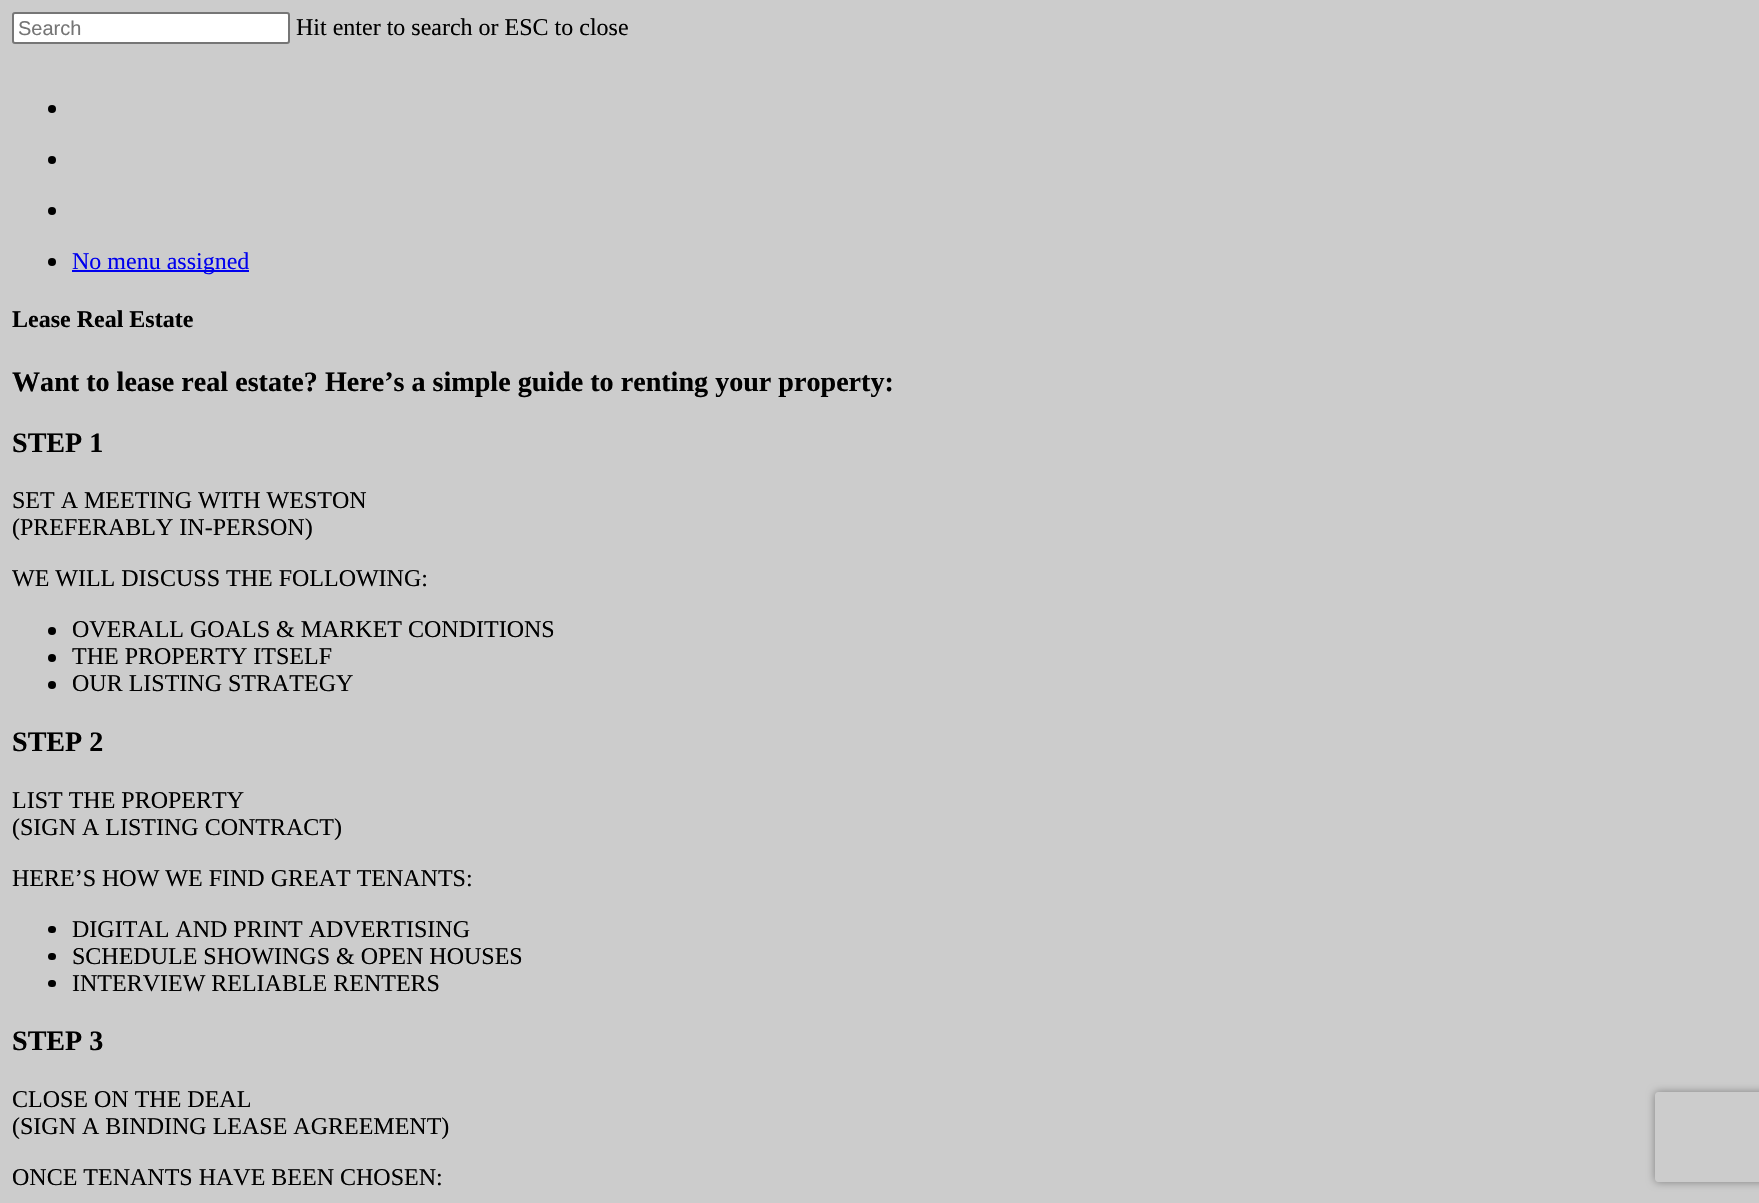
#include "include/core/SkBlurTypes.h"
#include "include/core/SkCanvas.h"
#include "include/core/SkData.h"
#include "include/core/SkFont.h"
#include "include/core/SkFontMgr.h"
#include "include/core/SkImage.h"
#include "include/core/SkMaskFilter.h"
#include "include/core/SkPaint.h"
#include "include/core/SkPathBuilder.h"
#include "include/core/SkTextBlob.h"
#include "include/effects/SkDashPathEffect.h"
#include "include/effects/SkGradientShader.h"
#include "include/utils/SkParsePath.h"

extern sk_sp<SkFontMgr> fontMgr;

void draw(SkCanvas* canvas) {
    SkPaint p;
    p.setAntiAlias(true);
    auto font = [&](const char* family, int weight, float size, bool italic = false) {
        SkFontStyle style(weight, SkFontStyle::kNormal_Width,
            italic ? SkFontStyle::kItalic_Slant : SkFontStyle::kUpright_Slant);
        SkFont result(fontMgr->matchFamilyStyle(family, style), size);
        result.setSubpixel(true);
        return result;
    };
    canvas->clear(0xFFCCCCCC);
    p.setColor(0xFFFFFFFF);
    canvas->drawRoundRect(SkRect::MakeLTRB(13, 13, 289, 43), 2, 2, p);
    p.setStyle(SkPaint::kStroke_Style);
    p.setStrokeWidth(2);
    p.setColor(0xFF767676);
    canvas->drawRoundRect(SkRect::MakeLTRB(13, 13, 289, 43), 2, 2, p);
    auto font1 = font("Liberation Sans", 400, 20);
    p.setStyle(SkPaint::kFill_Style);
    p.setColor(0xFF757575);
    canvas->drawString("Search", 18, 35, font1, p);
    auto font2 = font("Liberation Serif", 400, 24);
    p.setColor(0xFF000000);
    canvas->drawString("Hit enter to search or ESC to close", 296, 35, font2, p);
    canvas->drawCircle(52, 109, 4, p);
    canvas->drawCircle(52, 160, 4, p);
    canvas->drawCircle(52, 211, 4, p);
    canvas->drawCircle(52, 262, 4, p);
    p.setColor(0xFF0000EE);
    canvas->drawRect(SkRect::MakeLTRB(72, 270, 249, 272), p);
    canvas->drawString("No menu assigned", 72, 269, font2, p);
    auto font3 = font("Liberation Serif", 700, 24);
    p.setColor(0xFF000000);
    canvas->drawString("Lease Real Estate", 12, 327, font3, p);
    auto font4 = font("Liberation Serif", 700, 28.1f);
    canvas->drawString("Want to lease real estate? Here’s a simple guide to renting your property:", 12, 391, font4, p);
    canvas->drawString("STEP 1", 12, 452, font4, p);
    {
        const struct { const char* s; float x, y; } items[] = {
            {"SET A MEETING WITH WESTON", 12, 508},
            {"(PREFERABLY IN-PERSON)", 12, 535},
            {"WE WILL DISCUSS THE FOLLOWING:", 12, 586},
        };
        for (auto [s, x, y] : items) {
            canvas->drawString(s, x, y, font2, p);
        }
    }
    canvas->drawCircle(52, 631, 4, p);
    canvas->drawString("OVERALL GOALS & MARKET CONDITIONS", 72, 637, font2, p);
    canvas->drawCircle(52, 658, 4, p);
    canvas->drawString("THE PROPERTY ITSELF", 72, 664, font2, p);
    canvas->drawCircle(52, 685, 4, p);
    canvas->drawString("OUR LISTING STRATEGY", 72, 691, font2, p);
    canvas->drawString("STEP 2", 12, 751, font4, p);
    {
        const struct { const char* s; float x, y; } items[] = {
            {"LIST THE PROPERTY", 12, 808},
            {"(SIGN A LISTING CONTRACT)", 12, 835},
            {"HERE’S HOW WE FIND GREAT TENANTS:", 12, 886},
        };
        for (auto [s, x, y] : items) {
            canvas->drawString(s, x, y, font2, p);
        }
    }
    canvas->drawRoundRect(SkRect::MakeLTRB(48, 926, 56, 933), 3.5f, 3.5f, p);
    canvas->drawString("DIGITAL AND PRINT ADVERTISING", 72, 937, font2, p);
    canvas->drawRoundRect(SkRect::MakeLTRB(48, 953, 56, 960), 3.5f, 3.5f, p);
    canvas->drawString("SCHEDULE SHOWINGS & OPEN HOUSES", 72, 964, font2, p);
    canvas->drawRoundRect(SkRect::MakeLTRB(48, 980, 56, 987), 3.5f, 3.5f, p);
    canvas->drawString("INTERVIEW RELIABLE RENTERS", 72, 991, font2, p);
    canvas->drawString("STEP 3", 12, 1050, font4, p);
    {
        const struct { const char* s; float x, y; } items[] = {
            {"CLOSE ON THE DEAL", 12, 1107},
            {"(SIGN A BINDING LEASE AGREEMENT)", 12, 1134},
            {"ONCE TENANTS HAVE BEEN CHOSEN:", 12, 1185},
        };
        for (auto [s, x, y] : items) {
            canvas->drawString(s, x, y, font2, p);
        }
    }
    canvas->save();
    canvas->clipPath(SkPathBuilder(SkPathFillType::kEvenOdd).moveTo(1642, 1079).lineTo(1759, 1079).lineTo(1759, 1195).lineTo(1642, 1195).close().moveTo(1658, 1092).lineTo(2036, 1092).cubicTo(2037.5f, 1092, 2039, 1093.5f, 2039, 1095).lineTo(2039, 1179).cubicTo(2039, 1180.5f, 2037.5f, 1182, 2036, 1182).lineTo(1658, 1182).cubicTo(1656.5f, 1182, 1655, 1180.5f, 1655, 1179).lineTo(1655, 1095).cubicTo(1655, 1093.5f, 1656.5f, 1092, 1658, 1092).close().detach(), true);
    p.setColor(0xFF808080);
    p.setMaskFilter(SkMaskFilter::MakeBlur(kNormal_SkBlurStyle, 4));
    canvas->drawRoundRect(SkRect::MakeLTRB(1655, 1092, 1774, 1182), 3, 3, p);
    p.setMaskFilter(nullptr);
    canvas->restore();
}
